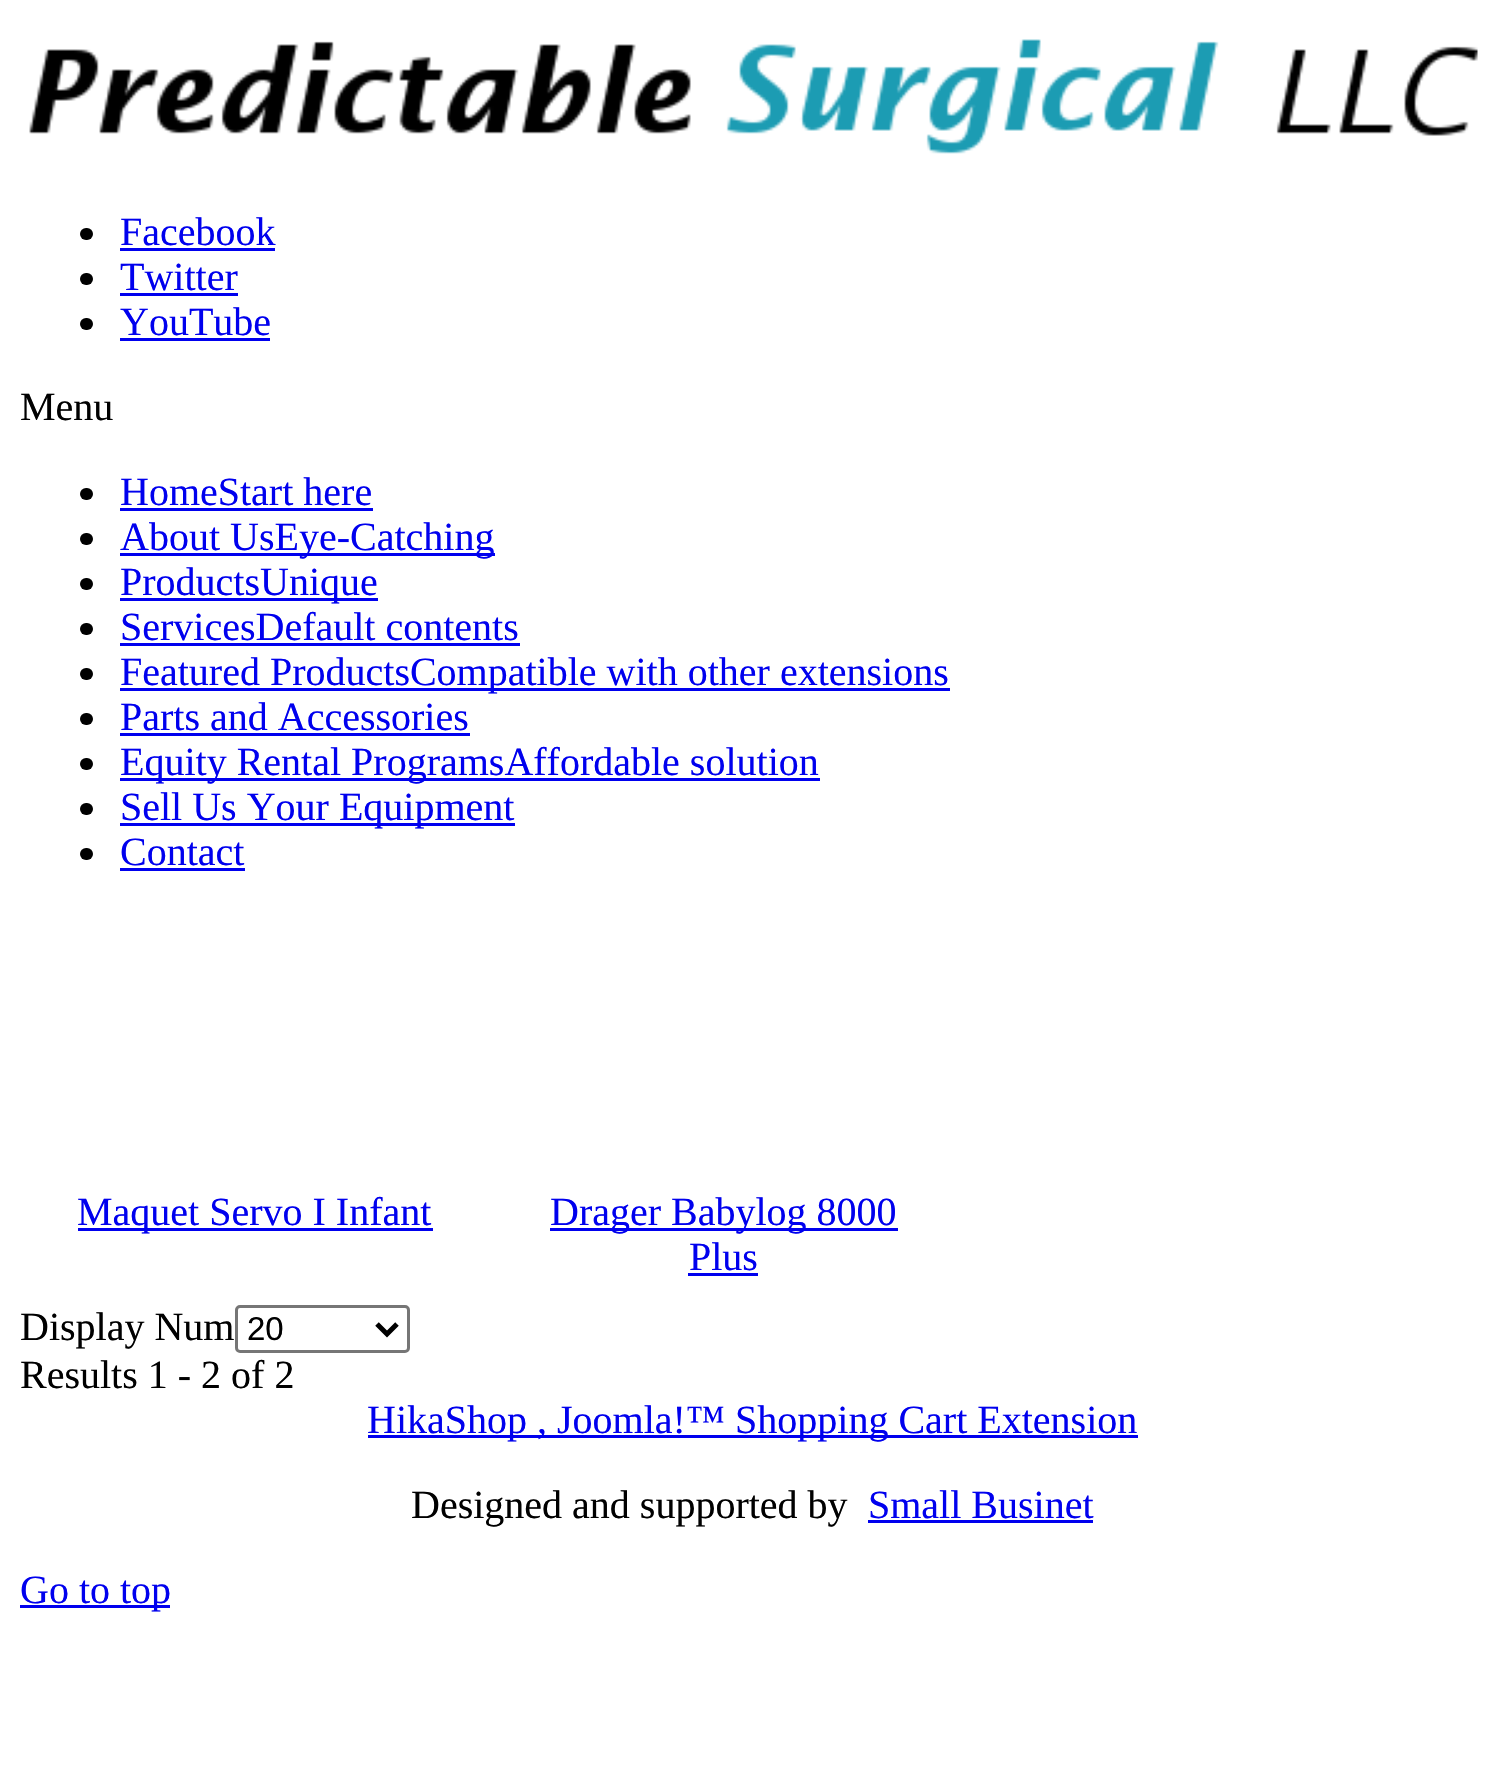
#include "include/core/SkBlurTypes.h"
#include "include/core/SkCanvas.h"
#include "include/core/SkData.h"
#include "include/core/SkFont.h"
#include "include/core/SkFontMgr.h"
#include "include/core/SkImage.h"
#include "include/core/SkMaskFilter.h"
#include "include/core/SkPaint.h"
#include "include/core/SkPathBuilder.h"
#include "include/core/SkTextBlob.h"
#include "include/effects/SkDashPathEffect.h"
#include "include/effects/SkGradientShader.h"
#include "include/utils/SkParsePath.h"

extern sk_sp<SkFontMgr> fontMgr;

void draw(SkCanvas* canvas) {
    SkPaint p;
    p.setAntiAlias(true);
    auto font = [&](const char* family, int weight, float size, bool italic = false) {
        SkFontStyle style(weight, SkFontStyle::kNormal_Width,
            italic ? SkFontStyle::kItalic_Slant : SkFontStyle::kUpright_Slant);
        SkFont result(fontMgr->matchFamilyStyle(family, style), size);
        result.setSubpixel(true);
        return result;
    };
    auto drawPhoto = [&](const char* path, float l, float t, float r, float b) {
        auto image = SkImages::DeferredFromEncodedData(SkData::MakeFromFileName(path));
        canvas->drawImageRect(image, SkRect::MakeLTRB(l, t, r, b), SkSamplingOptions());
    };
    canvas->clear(0xFFFFFFFF);
    drawPhoto("media/1.png", 29, 39, 1478, 154);
    p.setColor(0xFF000000);
    canvas->drawRoundRect(SkRect::MakeLTRB(80, 228, 93, 240), 6, 6, p);
    auto font1 = font("Liberation Serif", 400, 40);
    p.setColor(0xFF0000EE);
    canvas->drawString("Facebook", 120, 245, font1, p);
    canvas->drawRect(SkRect::MakeLTRB(120, 248, 275, 251), p);
    p.setColor(0xFF000000);
    canvas->drawRoundRect(SkRect::MakeLTRB(80, 273, 93, 285), 6, 6, p);
    p.setColor(0xFF0000EE);
    canvas->drawString("Twitter", 120, 290, font1, p);
    canvas->drawRect(SkRect::MakeLTRB(120, 293, 238, 296), p);
    p.setColor(0xFF000000);
    canvas->drawRoundRect(SkRect::MakeLTRB(80, 318, 93, 330), 6, 6, p);
    p.setColor(0xFF0000EE);
    canvas->drawString("YouTube", 120, 335, font1, p);
    canvas->drawRect(SkRect::MakeLTRB(120, 338, 270, 341), p);
    p.setColor(0xFF000000);
    canvas->drawString("Menu", 20, 420, font1, p);
    canvas->drawRoundRect(SkRect::MakeLTRB(80, 488, 93, 500), 6, 6, p);
    p.setColor(0xFF0000EE);
    canvas->drawString("HomeStart here", 120, 505, font1, p);
    canvas->drawRect(SkRect::MakeLTRB(120, 508, 373, 511), p);
    p.setColor(0xFF000000);
    canvas->drawRoundRect(SkRect::MakeLTRB(80, 533, 93, 545), 6, 6, p);
    p.setColor(0xFF0000EE);
    canvas->drawRect(SkRect::MakeLTRB(120, 553, 495, 556), p);
    canvas->drawString("About UsEye-Catching", 120, 550, font1, p);
    p.setColor(0xFF000000);
    canvas->drawRoundRect(SkRect::MakeLTRB(80, 578, 93, 590), 6, 6, p);
    p.setColor(0xFF0000EE);
    canvas->drawRect(SkRect::MakeLTRB(120, 598, 378, 601), p);
    canvas->drawString("ProductsUnique", 120, 595, font1, p);
    p.setColor(0xFF000000);
    canvas->drawRoundRect(SkRect::MakeLTRB(80, 623, 93, 635), 6, 6, p);
    p.setColor(0xFF0000EE);
    canvas->drawString("ServicesDefault contents", 120, 640, font1, p);
    canvas->drawRect(SkRect::MakeLTRB(120, 643, 520, 646), p);
    p.setColor(0xFF000000);
    canvas->drawRoundRect(SkRect::MakeLTRB(80, 668, 93, 680), 6, 6, p);
    p.setColor(0xFF0000EE);
    canvas->drawRect(SkRect::MakeLTRB(120, 688, 950, 691), p);
    canvas->drawString("Featured ProductsCompatible with other extensions", 120, 685, font1, p);
    p.setColor(0xFF000000);
    canvas->drawRoundRect(SkRect::MakeLTRB(80, 713, 93, 725), 6, 6, p);
    p.setColor(0xFF0000EE);
    canvas->drawString("Parts and Accessories", 120, 730, font1, p);
    canvas->drawRect(SkRect::MakeLTRB(120, 733, 470, 736), p);
    p.setColor(0xFF000000);
    canvas->drawRoundRect(SkRect::MakeLTRB(80, 758, 93, 770), 6, 6, p);
    p.setColor(0xFF0000EE);
    canvas->drawRect(SkRect::MakeLTRB(120, 778, 820, 781), p);
    canvas->drawString("Equity Rental ProgramsAffordable solution", 120, 775, font1, p);
    p.setColor(0xFF000000);
    canvas->drawRoundRect(SkRect::MakeLTRB(80, 803, 93, 815), 6, 6, p);
    p.setColor(0xFF0000EE);
    canvas->drawRect(SkRect::MakeLTRB(120, 823, 515, 826), p);
    canvas->drawString("Sell Us Your Equipment", 120, 820, font1, p);
    p.setColor(0xFF000000);
    canvas->drawRoundRect(SkRect::MakeLTRB(80, 848, 93, 860), 6, 6, p);
    p.setColor(0xFF0000EE);
    canvas->drawString("Contact", 120, 865, font1, p);
    canvas->drawRect(SkRect::MakeLTRB(120, 868, 245, 871), p);
    canvas->drawRect(SkRect::MakeLTRB(78, 1228, 433, 1231), p);
    canvas->drawString("Maquet Servo I Infant", 77, 1225, font1, p);
    canvas->drawRect(SkRect::MakeLTRB(550, 1228, 898, 1231), p);
    canvas->drawString("Drager Babylog 8000", 550, 1225, font1, p);
    canvas->drawString("Plus", 689, 1270, font1, p);
    canvas->drawRect(SkRect::MakeLTRB(688, 1273, 758, 1276), p);
    p.setColor(0xFF000000);
    canvas->drawString("Display Num", 20, 1340, font1, p);
    p.setStyle(SkPaint::kStroke_Style);
    p.setStrokeWidth(3);
    p.setColor(0xFF767676);
    canvas->drawRoundRect(SkRect::MakeLTRB(236.5f, 1306.5f, 408.5f, 1351.5f), 3.5f, 3.5f, p);
    p.setStrokeWidth(5);
    p.setColor(0xFF000000);
    canvas->drawPath(SkPathBuilder().moveTo(377, 1324).lineTo(387, 1334).lineTo(397, 1324).detach(), p);
    auto font2 = font("Liberation Sans", 400, 33);
    p.setStyle(SkPaint::kFill_Style);
    canvas->drawString("20", 247, 1340, font2, p);
    canvas->drawString("Results 1 - 2 of 2", 20, 1388, font1, p);
    p.setColor(0xFF0000EE);
    canvas->drawRect(SkRect::MakeLTRB(368, 1435, 1138, 1438), p);
    canvas->drawString("HikaShop , Joomla!™ Shopping Cart Extension", 367, 1433, font1, p);
    p.setColor(0xFF000000);
    canvas->drawString("Designed and supported by", 411, 1518, font1, p);
    p.setColor(0xFF0000EE);
    canvas->drawString("Small Businet", 868, 1518, font1, p);
    canvas->drawRect(SkRect::MakeLTRB(868, 1520, 1093, 1523), p);
    canvas->drawRect(SkRect::MakeLTRB(20, 1605, 170, 1608), p);
    canvas->drawString("Go to top", 20, 1603, font1, p);
}
